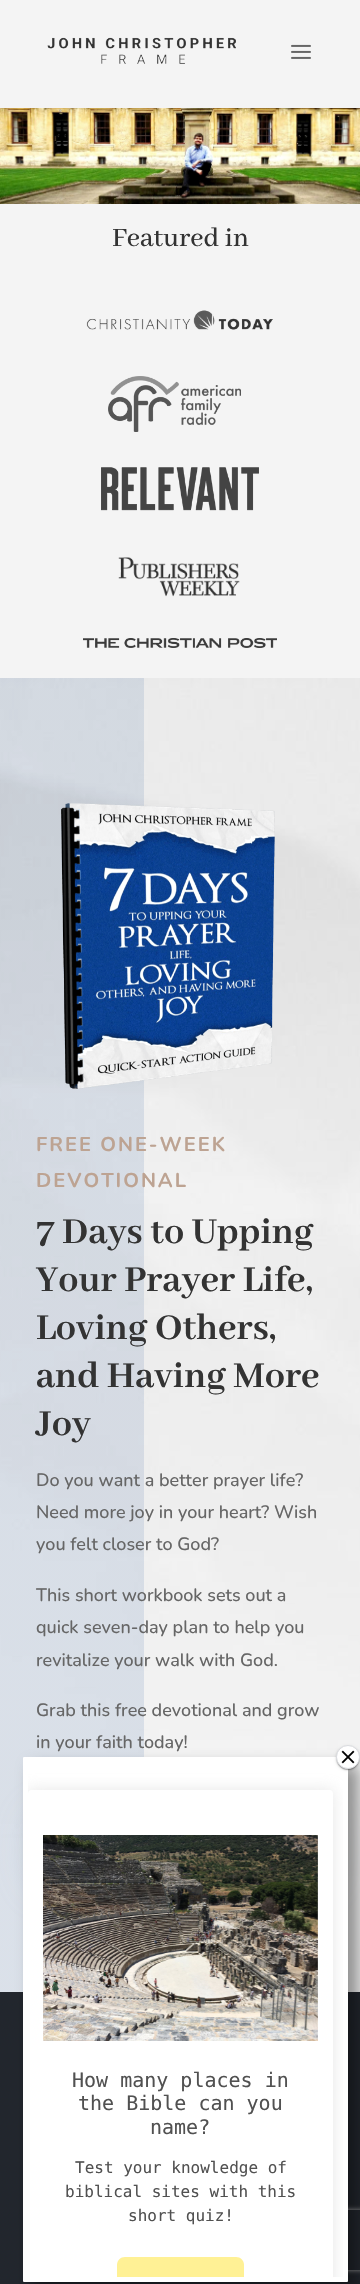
#include "include/core/SkBlurTypes.h"
#include "include/core/SkCanvas.h"
#include "include/core/SkData.h"
#include "include/core/SkFont.h"
#include "include/core/SkFontMgr.h"
#include "include/core/SkImage.h"
#include "include/core/SkMaskFilter.h"
#include "include/core/SkPaint.h"
#include "include/core/SkPathBuilder.h"
#include "include/core/SkTextBlob.h"
#include "include/effects/SkDashPathEffect.h"
#include "include/effects/SkGradientShader.h"
#include "include/utils/SkParsePath.h"

extern sk_sp<SkFontMgr> fontMgr;

void draw(SkCanvas* canvas) {
    SkPaint p;
    p.setAntiAlias(true);
    auto font = [&](const char* family, int weight, float size, bool italic = false) {
        SkFontStyle style(weight, SkFontStyle::kNormal_Width,
            italic ? SkFontStyle::kItalic_Slant : SkFontStyle::kUpright_Slant);
        SkFont result(fontMgr->matchFamilyStyle(family, style), size);
        result.setSubpixel(true);
        return result;
    };
    auto drawTracked = [&](const char* s, float x, float y, const SkFont& font, const SkPaint& ink, float letter, float word) {
        std::vector<SkGlyphID> glyphs(font.countText(s, strlen(s), SkTextEncoding::kUTF8));
        std::vector<float> xs(glyphs.size());
        font.textToGlyphs(s, strlen(s), SkTextEncoding::kUTF8, glyphs);
        font.getXPos(glyphs, xs, x);
        float extra = 0;
        for (size_t i = 0; i < glyphs.size(); i++) {
            xs[i] += extra;
            extra += letter + word * (glyphs[i] == font.unicharToGlyph(' '));
        }
        canvas->drawTextBlob(SkTextBlob::MakeFromPosHGlyphs(glyphs, xs, y, font), 0, 0, ink);
    };
    auto drawPhoto = [&](const char* path, float l, float t, float r, float b) {
        auto image = SkImages::DeferredFromEncodedData(SkData::MakeFromFileName(path));
        canvas->drawImageRect(image, SkRect::MakeLTRB(l, t, r, b), SkSamplingOptions());
    };
    canvas->clear(0xFFFFFFFF);
    p.setColor(0xFFF4F4F4);
    canvas->drawRect(SkRect::MakeLTRB(0, 0, 360, 108), p);
    drawPhoto("media/1.png", 47, 37, 236, 64);
    drawPhoto("media/2.png", 291, 44, 311, 59);
    drawPhoto("media/3.png", 0, 108, 360, 204);
    canvas->drawRect(SkRect::MakeLTRB(0, 204, 360, 678), p);
    auto font1 = font("Abhaya Libre Medium", 500, 29);
    p.setColor(0xFF333333);
    canvas->drawString("Featured in", 112, 246, font1, p);
    drawPhoto("media/4.png", 86, 310, 273, 330);
    drawPhoto("media/5.png", 108, 376, 241, 432);
    drawPhoto("media/6.png", 101, 467, 259, 511);
    drawPhoto("media/7.png", 118, 557, 240, 597);
    drawPhoto("media/8.png", 83, 638, 277, 648);
    drawPhoto("media/9.png", 0, 678, 360, 1992);
    drawPhoto("media/10.png", 61, 803, 275, 1089);
    auto font2 = font("Nunito", 700, 20);
    p.setColor(0xFFBDA392);
    drawTracked("FREE ONE-WEEK", 36, 1151, font2, p, 2, 0);
    drawTracked("DEVOTIONAL", 36, 1187, font2, p, 2, 0);
    auto font3 = font("Abhaya Libre", 700, 40);
    p.setColor(0xFF333333);
    {
        const struct { const char* s; float x, y; } items[] = {
            {"7 Days to Upping", 36, 1243},
            {"Your Prayer Life,", 36, 1291},
            {"Loving Others,", 36, 1339},
            {"and Having More", 36, 1387},
            {"Joy", 36, 1435},
        };
        for (auto [s, x, y] : items) {
            canvas->drawString(s, x, y, font3, p);
        }
    }
    auto font4 = font("Nunito", 500, 18);
    p.setColor(0xFF666666);
    {
        const struct { const char* s; float x, y; } items[] = {
            {"Do you want a better prayer life?", 36, 1486},
            {"Need more joy in your heart? Wish", 36, 1518},
            {"you felt closer to God?", 36, 1550},
            {"This short workbook sets out a", 36, 1601},
            {"quick seven-day plan to help you", 36, 1633},
            {"revitalize your walk with God.", 36, 1666},
            {"Grab this free devotional and grow", 36, 1716},
            {"in your faith today!", 36, 1748},
        };
        for (auto [s, x, y] : items) {
            canvas->drawString(s, x, y, font4, p);
        }
    }
    p.setColor(0x4094A6BF);
    p.setMaskFilter(SkMaskFilter::MakeBlur(kNormal_SkBlurStyle, 22.5f));
    canvas->drawRoundRect(SkRect::MakeLTRB(36, 1814, 324, 1886), 3, 3, p);
    p.setMaskFilter(nullptr);
    p.setColor(0xFF22262D);
    canvas->drawRect(SkRect::MakeLTRB(0, 1992, 360, 2284), p);
    p.setColor(0x66000000);
    p.setMaskFilter(SkMaskFilter::MakeBlur(kNormal_SkBlurStyle, 7.5f));
    canvas->drawRoundRect(SkRect::MakeLTRB(32, 1766, 359, 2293), 2, 2, p);
    p.setMaskFilter(nullptr);
    canvas->save();
    canvas->clipPath(SkPathBuilder(SkPathFillType::kEvenOdd).moveTo(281, 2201).lineTo(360, 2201).lineTo(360, 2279).lineTo(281, 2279).close().moveTo(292, 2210).lineTo(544, 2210).cubicTo(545, 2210, 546, 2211, 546, 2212).lineTo(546, 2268).cubicTo(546, 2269, 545, 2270, 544, 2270).lineTo(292, 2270).cubicTo(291, 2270, 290, 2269, 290, 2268).lineTo(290, 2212).cubicTo(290, 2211, 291, 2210, 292, 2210).close().detach(), true);
    p.setColor(0xFF808080);
    p.setMaskFilter(SkMaskFilter::MakeBlur(kNormal_SkBlurStyle, 2.5f));
    canvas->drawRoundRect(SkRect::MakeLTRB(290, 2210, 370, 2270), 2, 2, p);
    p.setMaskFilter(nullptr);
    canvas->restore();
    p.setColor(0xFFFFFFFF);
    canvas->drawRoundRect(SkRect::MakeLTRB(23, 1757, 348, 2282), 1, 1, p);
    p.setColor(0x1F000000);
    p.setMaskFilter(SkMaskFilter::MakeBlur(kNormal_SkBlurStyle, 1.5f));
    canvas->drawRoundRect(SkRect::MakeLTRB(336, 1746, 360, 1770), 12, 12, p);
    p.setMaskFilter(nullptr);
    p.setColor(0x24000000);
    p.setMaskFilter(SkMaskFilter::MakeBlur(kNormal_SkBlurStyle, 0.5f));
    canvas->drawRoundRect(SkRect::MakeLTRB(336, 1746, 360, 1770), 12, 12, p);
    p.setMaskFilter(nullptr);
    p.setColor(0x33000000);
    p.setMaskFilter(SkMaskFilter::MakeBlur(kNormal_SkBlurStyle, 0.5f));
    canvas->drawRoundRect(SkRect::MakeLTRB(337, 1748, 359, 1770), 11, 11, p);
    p.setMaskFilter(nullptr);
    p.setColor(0xFFFFFFFF);
    canvas->drawCircle(348, 1757, 11.5f, p);
    p.setStyle(SkPaint::kStroke_Style);
    p.setStrokeWidth(1);
    p.setColor(0xFFDADCE0);
    canvas->drawCircle(348, 1757, 11.5f, p);
    drawPhoto("media/11.png", 341, 1750, 355, 1764);
    canvas->save();
    canvas->clipRect(SkRect::MakeLTRB(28, 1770, 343, 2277));
    p.setStyle(SkPaint::kFill_Style);
    p.setColor(0x66C9C9C9);
    p.setMaskFilter(SkMaskFilter::MakeBlur(kNormal_SkBlurStyle, 7.5f));
    canvas->drawRoundRect(SkRect::MakeLTRB(27, 1789, 334, 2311), 4, 4, p);
    p.setMaskFilter(nullptr);
    canvas->restore();
    p.setColor(0xFFFFFFFF);
    canvas->drawPath(SkPathBuilder().moveTo(31, 1790).lineTo(330, 1790).cubicTo(331.5f, 1790, 333, 1791.5f, 333, 1793).lineTo(333, 2277).lineTo(28, 2277).lineTo(28, 1793).cubicTo(28, 1791.5f, 29.5f, 1790, 31, 1790).close().detach(), p);
    drawPhoto("media/12.png", 43, 1835, 318, 2041);
    auto font5 = font("DejaVu Sans Mono", 400, 20);
    p.setColor(0xFF515151);
    {
        const struct { const char* s; float x, y; } items[] = {
            {"How many places in", 72, 2087},
            {"the Bible can you", 78, 2110},
            {"name?", 150, 2134},
        };
        for (auto [s, x, y] : items) {
            canvas->drawString(s, x, y, font5, p);
        }
    }
    auto font6 = font("DejaVu Sans Mono", 400, 16);
    {
        const struct { const char* s; float x, y; } items[] = {
            {"Test your knowledge of", 75, 2173},
            {"biblical sites with this", 65, 2197},
            {"short quiz!", 128, 2221},
        };
        for (auto [s, x, y] : items) {
            canvas->drawString(s, x, y, font6, p);
        }
    }
    p.setColor(0xFFFFF195);
    canvas->drawPath(SkPathBuilder().moveTo(125, 2257).lineTo(236, 2257).cubicTo(240.5f, 2257, 244, 2260.5f, 244, 2265).lineTo(244, 2277).lineTo(117, 2277).lineTo(117, 2265).cubicTo(117, 2260.5f, 120.5f, 2257, 125, 2257).close().detach(), p);
}
